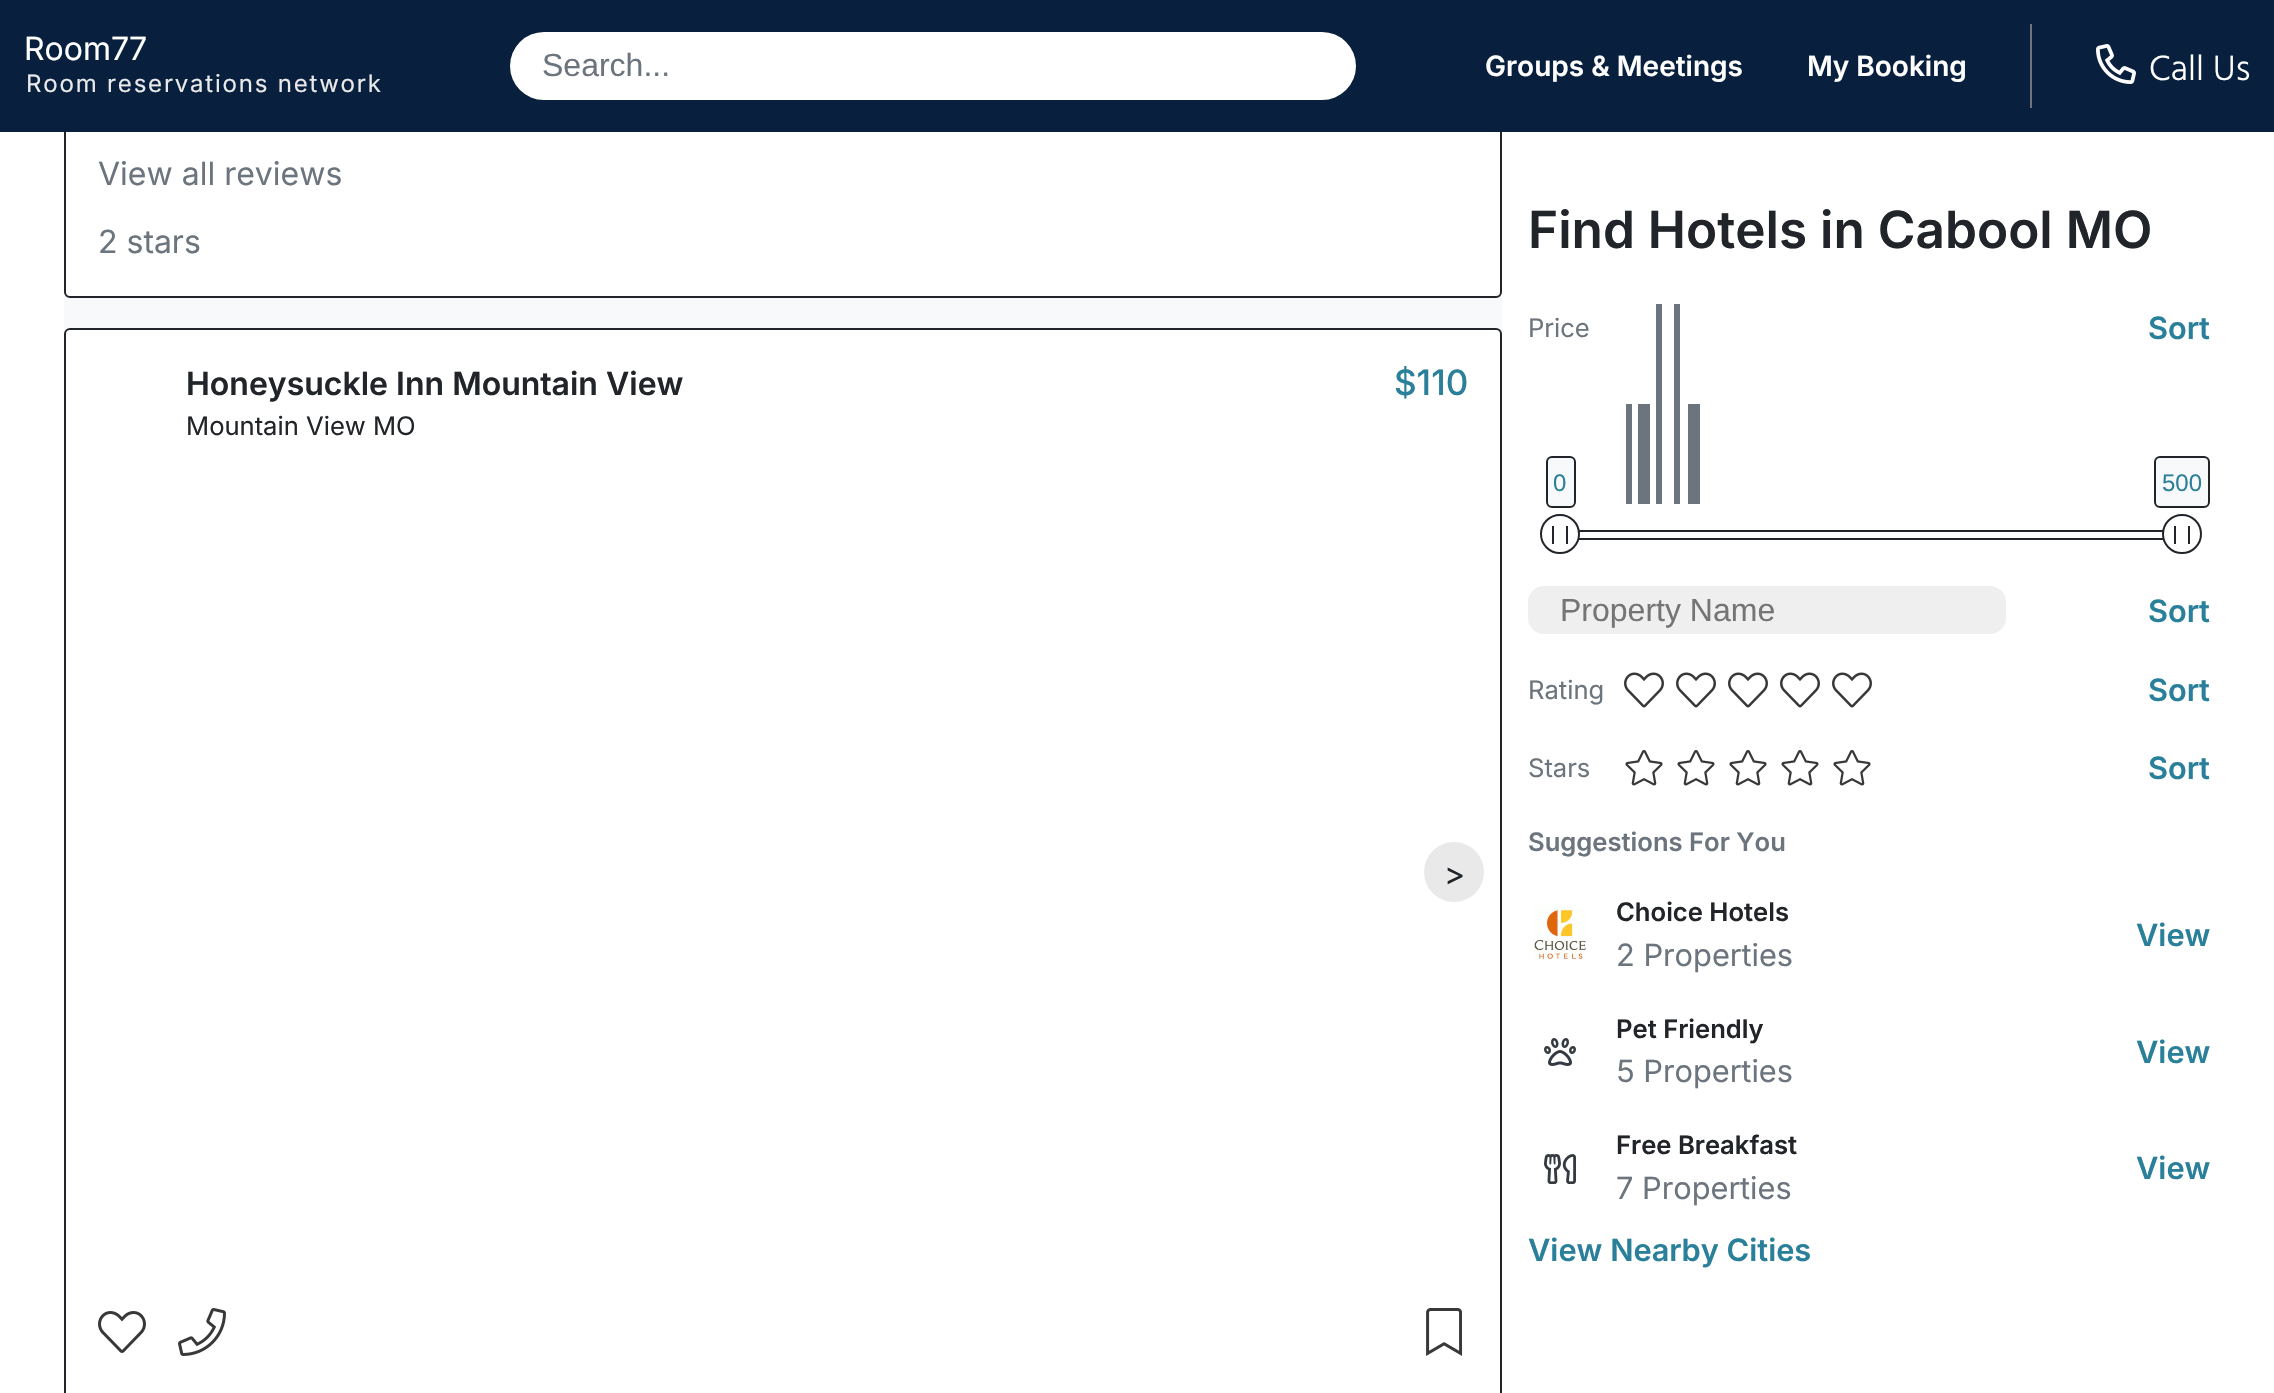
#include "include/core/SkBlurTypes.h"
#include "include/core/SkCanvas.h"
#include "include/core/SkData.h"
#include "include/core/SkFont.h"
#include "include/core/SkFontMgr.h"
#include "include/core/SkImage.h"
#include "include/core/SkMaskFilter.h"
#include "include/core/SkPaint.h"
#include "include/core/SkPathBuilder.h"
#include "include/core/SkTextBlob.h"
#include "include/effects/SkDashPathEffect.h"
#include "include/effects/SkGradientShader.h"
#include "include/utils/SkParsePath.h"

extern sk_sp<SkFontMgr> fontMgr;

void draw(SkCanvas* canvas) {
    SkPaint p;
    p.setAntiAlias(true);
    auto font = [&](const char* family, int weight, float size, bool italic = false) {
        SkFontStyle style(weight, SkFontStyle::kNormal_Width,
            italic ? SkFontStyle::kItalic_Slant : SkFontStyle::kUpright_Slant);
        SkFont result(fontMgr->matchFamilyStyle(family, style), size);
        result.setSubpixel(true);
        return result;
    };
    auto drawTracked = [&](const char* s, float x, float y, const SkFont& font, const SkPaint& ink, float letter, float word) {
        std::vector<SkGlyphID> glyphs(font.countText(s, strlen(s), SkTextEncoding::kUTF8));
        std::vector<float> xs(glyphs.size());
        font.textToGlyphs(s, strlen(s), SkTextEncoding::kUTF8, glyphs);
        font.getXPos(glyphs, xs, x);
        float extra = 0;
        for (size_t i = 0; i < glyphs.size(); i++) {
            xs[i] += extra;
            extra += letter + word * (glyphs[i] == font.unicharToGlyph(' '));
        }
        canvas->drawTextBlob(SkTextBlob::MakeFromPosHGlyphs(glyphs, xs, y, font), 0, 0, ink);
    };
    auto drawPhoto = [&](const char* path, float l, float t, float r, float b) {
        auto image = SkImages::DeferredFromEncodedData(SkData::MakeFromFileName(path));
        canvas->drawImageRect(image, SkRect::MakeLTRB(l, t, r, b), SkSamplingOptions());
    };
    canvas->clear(0xFFFFFFFF);
    p.setColor(0xFFF8F9FA);
    canvas->drawRect(SkRect::MakeLTRB(64, 292, 1502, 334), p);
    p.setColor(0xFFFFFFFF);
    canvas->drawRoundRect(SkRect::MakeLTRB(65, -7, 1501, 297), 5, 5, p);
    p.setStyle(SkPaint::kStroke_Style);
    p.setStrokeWidth(2);
    p.setColor(0xFF212529);
    canvas->drawRoundRect(SkRect::MakeLTRB(65, -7, 1501, 297), 5, 5, p);
    p.setStyle(SkPaint::kFill_Style);
    p.setColor(0xFF08203D);
    canvas->drawRect(SkRect::MakeLTRB(0, 0, 2274, 132), p);
    auto font1 = font("Inter", 400, 32);
    p.setColor(0xFFFFFFFF);
    canvas->drawString("Room77", 24, 60, font1, p);
    auto font2 = font("Inter", 400, 24);
    p.setColor(0xFFE9E9EA);
    drawTracked("Room reservations network", 26, 92, font2, p, 1.8f, 0);
    p.setColor(0xFFFFFFFF);
    canvas->drawRoundRect(SkRect::MakeLTRB(510, 32, 1356, 100), 34, 34, p);
    auto font3 = font("Liberation Sans", 400, 32);
    p.setColor(0xFF6C757D);
    canvas->drawString("Search...", 542, 76, font3, p);
    auto font4 = font("Inter", 600, 28);
    p.setColor(0xFFFFFFFF);
    canvas->drawString("Groups & Meetings", 1485, 76, font4, p);
    canvas->drawString("My Booking", 1807, 76, font4, p);
    p.setColor(0xFF6C757D);
    canvas->drawRect(SkRect::MakeLTRB(2030, 24, 2032, 108), p);
    drawPhoto("media/1.png", 2096, 44, 2136, 84);
    auto font5 = font("Hind Madurai", 300, 36);
    p.setColor(0xFFFFFFFF);
    canvas->drawString("Call Us", 2149, 80, font5, p);
    p.setColor(0xFF6C757D);
    canvas->drawString("View all reviews", 98, 185, font1, p);
    canvas->drawString("2 stars", 98, 253, font1, p);
    p.setColor(0xFFFFFFFF);
    canvas->drawRoundRect(SkRect::MakeLTRB(65, 329, 1501, 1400), 5, 5, p);
    p.setStyle(SkPaint::kStroke_Style);
    p.setColor(0xFF212529);
    canvas->drawRoundRect(SkRect::MakeLTRB(65, 329, 1501, 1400), 5, 5, p);
    auto font6 = font("Inter", 600, 32);
    p.setStyle(SkPaint::kFill_Style);
    canvas->drawString("Honeysuckle Inn Mountain View", 186, 395, font6, p);
    auto font7 = font("Inter", 400, 25.6f);
    canvas->drawString("Mountain View MO", 186, 435, font7, p);
    auto font8 = font("Inter", 500, 35);
    p.setColor(0xFF2A809A);
    canvas->drawString("$110", 1394, 395, font8, p);
    p.setColor(0xFFE9E9E9);
    canvas->drawCircle(1454, 872, 30, p);
    p.setColor(0xFF212529);
    canvas->drawString(">", 1444, 885, font1, p);
    drawPhoto("media/2.png", 98, 1311, 146, 1353);
    drawPhoto("media/3.png", 178, 1308, 226, 1356);
    drawPhoto("media/4.png", 1426, 1308, 1462, 1356);
    auto font9 = font("Inter", 600, 51.25f);
    canvas->drawString("Find Hotels in Cabool MO", 1528, 248, font9, p);
    {
        const struct { float l, t, r, b; SkColor color; } items[] = {
            {1626, 404, 1632, 504, 0xFF6C757D},
            {1638, 404, 1650, 504, 0xFF6C757D},
            {1656, 304, 1662, 504, 0xFF6C757D},
            {1674, 304, 1680, 504, 0xFF6C757D},
            {1688, 404, 1700, 504, 0xFF6C757D},
        };
        for (auto [l, t, r, b, color] : items) {
            p.setColor(color);
            canvas->drawRect(SkRect::MakeLTRB(l, t, r, b), p);
        }
    }
    canvas->drawString("Price", 1528, 337, font7, p);
    auto font10 = font("Inter", 600, 30.75f);
    p.setColor(0xFF2A809A);
    canvas->drawString("Sort", 2148, 339, font10, p);
    p.setStyle(SkPaint::kStroke_Style);
    p.setColor(0xFF212529);
    canvas->drawRect(SkRect::MakeLTRB(1559, 531, 2179, 539), p);
    p.setStyle(SkPaint::kFill_Style);
    p.setColor(0xFFFFFFFF);
    canvas->drawCircle(1560, 534, 19, p);
    p.setStyle(SkPaint::kStroke_Style);
    p.setColor(0xFF212529);
    canvas->drawCircle(1560, 534, 19, p);
    p.setStyle(SkPaint::kFill_Style);
    p.setColor(0xFFF8F9FA);
    canvas->drawRoundRect(SkRect::MakeLTRB(1547, 457, 1575, 507), 5, 5, p);
    p.setStyle(SkPaint::kStroke_Style);
    p.setColor(0xFF212529);
    canvas->drawRoundRect(SkRect::MakeLTRB(1547, 457, 1575, 507), 5, 5, p);
    auto font11 = font("Liberation Sans", 400, 24);
    p.setStyle(SkPaint::kFill_Style);
    p.setColor(0xFF2A809A);
    canvas->drawString("0", 1553, 491, font11, p);
    p.setColor(0xFF212529);
    canvas->drawRect(SkRect::MakeLTRB(1552, 526, 1554, 544), p);
    canvas->drawRect(SkRect::MakeLTRB(1566, 526, 1568, 544), p);
    p.setColor(0xFFFFFFFF);
    canvas->drawCircle(2182, 534, 19, p);
    p.setStyle(SkPaint::kStroke_Style);
    p.setColor(0xFF212529);
    canvas->drawCircle(2182, 534, 19, p);
    p.setStyle(SkPaint::kFill_Style);
    p.setColor(0xFFF8F9FA);
    canvas->drawRoundRect(SkRect::MakeLTRB(2155, 457, 2209, 507), 5, 5, p);
    p.setStyle(SkPaint::kStroke_Style);
    p.setColor(0xFF212529);
    canvas->drawRoundRect(SkRect::MakeLTRB(2155, 457, 2209, 507), 5, 5, p);
    p.setStyle(SkPaint::kFill_Style);
    p.setColor(0xFF2A809A);
    canvas->drawString("500", 2162, 491, font11, p);
    p.setColor(0xFF212529);
    canvas->drawRect(SkRect::MakeLTRB(2174, 526, 2176, 544), p);
    canvas->drawRect(SkRect::MakeLTRB(2188, 526, 2190, 544), p);
    p.setColor(0xFFEFEFEF);
    canvas->drawRoundRect(SkRect::MakeLTRB(1528, 586, 2006, 634), 16, 16, p);
    p.setColor(0xFF757575);
    canvas->drawString("Property Name", 1560, 621, font3, p);
    p.setColor(0xFF2A809A);
    canvas->drawString("Sort", 2148, 622, font10, p);
    p.setColor(0xFF6C757D);
    canvas->drawString("Rating", 1528, 699, font7, p);
    drawPhoto("media/5.png", 1624, 672, 1664, 708);
    drawPhoto("media/5.png", 1676, 672, 1716, 708);
    drawPhoto("media/5.png", 1728, 672, 1768, 708);
    drawPhoto("media/5.png", 1780, 672, 1820, 708);
    drawPhoto("media/5.png", 1832, 672, 1872, 708);
    p.setColor(0xFF2A809A);
    canvas->drawString("Sort", 2148, 701, font10, p);
    p.setColor(0xFF6C757D);
    canvas->drawString("Stars", 1528, 777, font7, p);
    drawPhoto("media/6.png", 1625, 750, 1663, 786);
    drawPhoto("media/6.png", 1677, 750, 1715, 786);
    drawPhoto("media/6.png", 1729, 750, 1767, 786);
    drawPhoto("media/6.png", 1781, 750, 1819, 786);
    drawPhoto("media/6.png", 1833, 750, 1871, 786);
    p.setColor(0xFF2A809A);
    canvas->drawString("Sort", 2148, 779, font10, p);
    auto font12 = font("Inter", 600, 25.6f);
    p.setColor(0xFF6C757D);
    canvas->drawString("Suggestions For You", 1528, 851, font12, p);
    drawPhoto("media/7.png", 1533, 906, 1587, 961);
    p.setColor(0xFF212529);
    canvas->drawString("Choice Hotels", 1616, 921, font12, p);
    auto font13 = font("Inter", 400, 30.75f);
    p.setColor(0xFF6C757D);
    canvas->drawString("2 Properties", 1616, 966, font13, p);
    p.setColor(0xFF2A809A);
    canvas->drawString("View", 2136, 946, font10, p);
    drawPhoto("media/8.png", 1544, 1038, 1576, 1066);
    p.setColor(0xFF212529);
    canvas->drawString("Pet Friendly", 1616, 1038, font12, p);
    p.setColor(0xFF6C757D);
    canvas->drawString("5 Properties", 1616, 1082, font13, p);
    p.setColor(0xFF2A809A);
    canvas->drawString("View", 2136, 1063, font10, p);
    drawPhoto("media/9.png", 1544, 1154, 1576, 1184);
    p.setColor(0xFF212529);
    canvas->drawString("Free Breakfast", 1616, 1154, font12, p);
    p.setColor(0xFF6C757D);
    canvas->drawString("7 Properties", 1616, 1199, font13, p);
    p.setColor(0xFF2A809A);
    canvas->drawString("View", 2136, 1179, font10, p);
    canvas->drawString("View Nearby Cities", 1528, 1261, font10, p);
}
